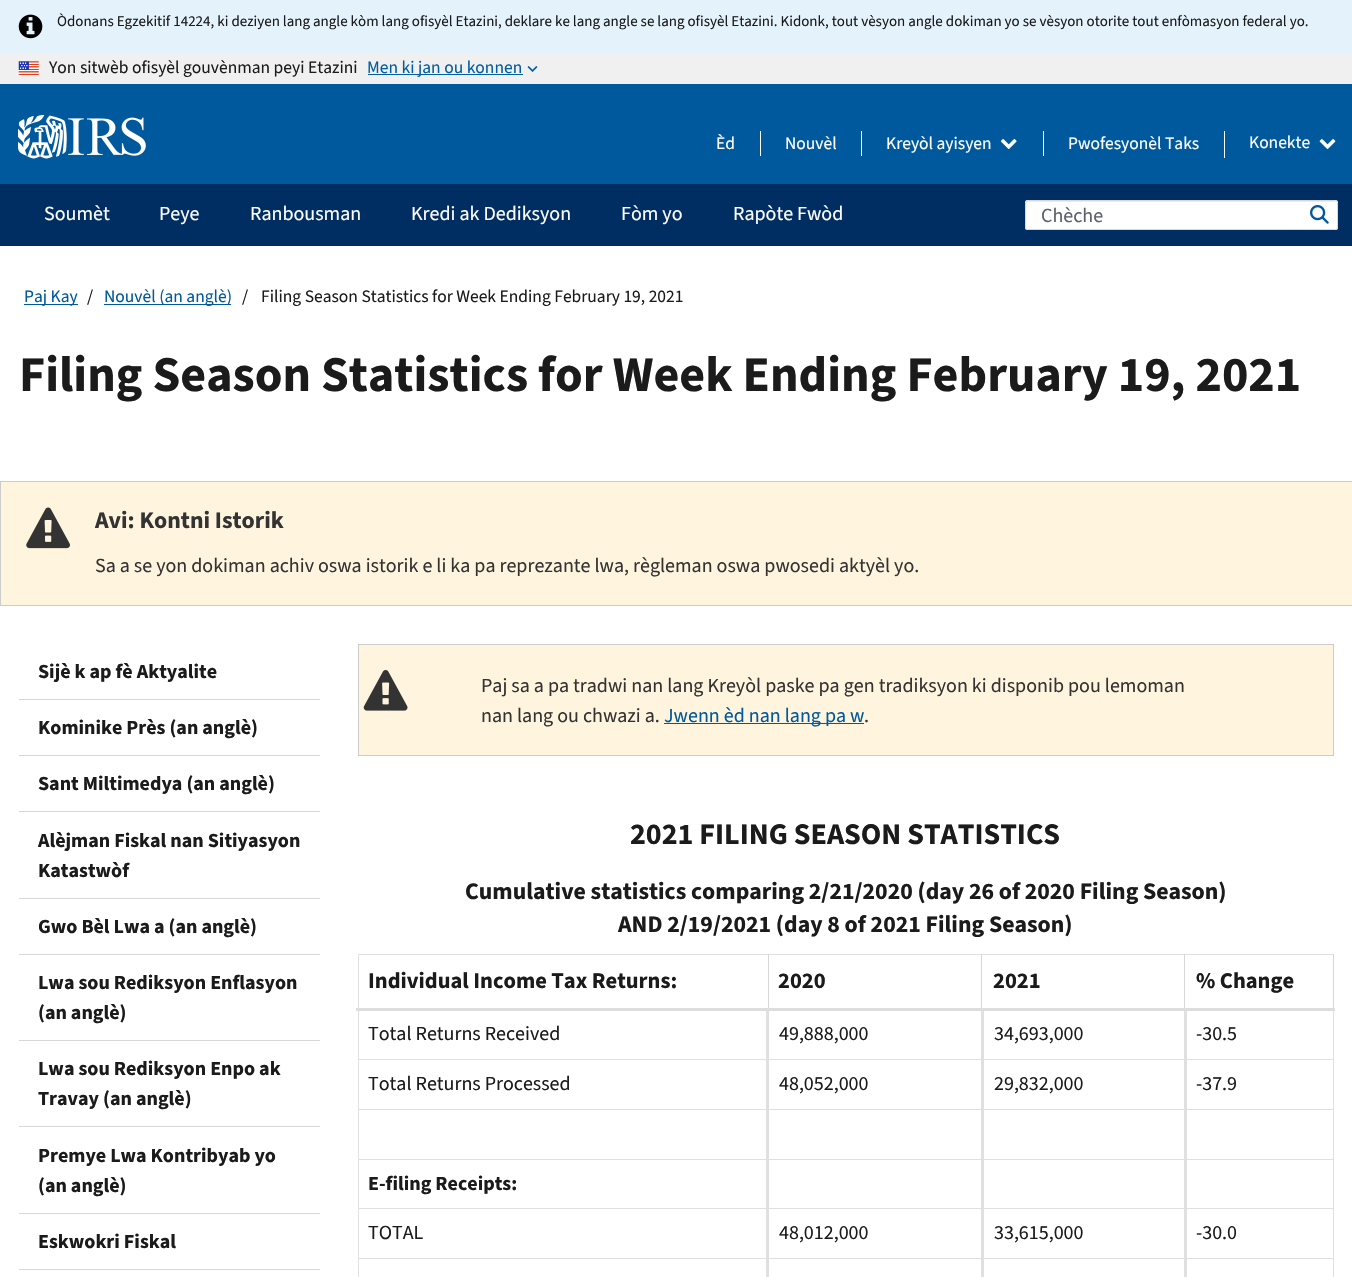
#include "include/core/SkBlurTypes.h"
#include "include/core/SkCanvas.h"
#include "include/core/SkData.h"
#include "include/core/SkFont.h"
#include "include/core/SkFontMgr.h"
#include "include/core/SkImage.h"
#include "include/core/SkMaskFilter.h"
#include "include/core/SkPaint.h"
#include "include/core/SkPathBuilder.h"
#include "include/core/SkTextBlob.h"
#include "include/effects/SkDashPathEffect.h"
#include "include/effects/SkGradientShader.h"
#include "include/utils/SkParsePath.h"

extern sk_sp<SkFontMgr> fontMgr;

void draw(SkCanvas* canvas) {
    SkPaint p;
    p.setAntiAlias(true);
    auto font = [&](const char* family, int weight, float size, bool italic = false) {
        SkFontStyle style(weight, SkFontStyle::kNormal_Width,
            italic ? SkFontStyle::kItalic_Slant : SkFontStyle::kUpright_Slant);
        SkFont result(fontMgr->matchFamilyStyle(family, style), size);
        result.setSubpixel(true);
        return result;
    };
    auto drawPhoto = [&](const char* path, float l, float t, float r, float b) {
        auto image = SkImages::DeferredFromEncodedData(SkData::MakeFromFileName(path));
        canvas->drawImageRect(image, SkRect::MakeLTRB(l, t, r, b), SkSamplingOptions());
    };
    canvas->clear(0xFFFFFFFF);
    p.setColor(0xFFF0F0F0);
    canvas->drawRect(SkRect::MakeLTRB(0, 53, 1352, 84), p);
    p.setColor(0xFFE4F3FB);
    canvas->drawRect(SkRect::MakeLTRB(0, 0, 1352, 53), p);
    drawPhoto("media/1.png", 18, 14, 43, 39);
    auto font1 = font("Source Sans 3", 400, 15);
    p.setColor(0xFF1B1B1B);
    canvas->drawString("Òdonans Egzekitif 14224, ki deziyen lang angle kòm lang ofisyèl Etazini, deklare ke lang angle se lang ofisyèl Etazini. Kidonk, tout vèsyon angle dokiman yo se vèsyon otorite tout enfòmasyon federal yo.", 57, 26, font1, p);
    drawPhoto("media/2.png", 18, 61, 39, 75);
    auto font2 = font("Source Sans 3", 400, 17.5f);
    canvas->drawString("Yon sitwèb ofisyèl gouvènman peyi Etazini", 49, 73, font2, p);
    p.setColor(0xFF005EA2);
    canvas->drawRect(SkRect::MakeLTRB(368, 74, 523, 75), p);
    canvas->drawString("Men ki jan ou konnen", 367, 73, font2, p);
    drawPhoto("media/3.png", 527, 66, 538, 72);
    p.setColor(0xFF00599C);
    canvas->drawRect(SkRect::MakeLTRB(0, 84, 1352, 184), p);
    drawPhoto("media/4.png", 18, 115, 146, 159);
    p.setColor(0xFFFFFFFF);
    canvas->drawString("Èd", 716, 149, font2, p);
    canvas->drawRect(SkRect::MakeLTRB(760, 131, 761, 156), p);
    canvas->drawString("Nouvèl", 785, 149, font2, p);
    canvas->drawRect(SkRect::MakeLTRB(861, 131, 862, 156), p);
    canvas->drawString("Kreyòl ayisyen", 886, 149, font2, p);
    drawPhoto("media/5.png", 1000, 139, 1017, 149);
    canvas->drawRect(SkRect::MakeLTRB(1043, 131, 1044, 156), p);
    canvas->drawString("Pwofesyonèl Taks", 1068, 149, font2, p);
    canvas->drawRect(SkRect::MakeLTRB(1224, 131, 1225, 158), p);
    canvas->drawString("Konekte", 1249, 148, font2, p);
    drawPhoto("media/6.png", 1319, 139, 1336, 149);
    p.setColor(0xFF002D62);
    canvas->drawRect(SkRect::MakeLTRB(0, 184, 1352, 246), p);
    auto font3 = font("Source Sans 3", 400, 20);
    p.setColor(0xFFFFFFFF);
    {
        const struct { const char* s; float x, y; } items[] = {
            {"Soumèt", 44, 220},
            {"Peye", 159, 220},
            {"Ranbousman", 250, 220},
            {"Kredi ak Dediksyon", 411, 220},
            {"Fòm yo", 621, 220},
            {"Rapòte Fwòd", 733, 220},
        };
        for (auto [s, x, y] : items) {
            canvas->drawString(s, x, y, font3, p);
        }
    }
    canvas->drawRoundRect(SkRect::MakeLTRB(1025, 200, 1338, 230), 2.5f, 2.5f, p);
    p.setColor(0xFFECECEC);
    canvas->drawPath(SkPathBuilder().moveTo(1028, 202).lineTo(1335, 202).lineTo(1336, 203).lineTo(1336, 204).cubicTo(1336, 203, 1336, 201, 1335, 201).lineTo(1026, 201).lineTo(1026, 204).cubicTo(1026, 203, 1027, 202, 1028, 202).close().detach(), p);
    p.setStyle(SkPaint::kStroke_Style);
    p.setStrokeWidth(1);
    p.setColor(0xFFD6D7D9);
    canvas->drawRoundRect(SkRect::MakeLTRB(1025.5f, 200.5f, 1337.5f, 229.5f), 2, 2, p);
    p.setStyle(SkPaint::kFill_Style);
    p.setColor(0xFF5B616B);
    canvas->drawString("Chèche", 1041, 222, font3, p);
    drawPhoto("media/7.png", 1310, 205, 1329, 224);
    p.setColor(0xFF00599C);
    canvas->drawRect(SkRect::MakeLTRB(24, 304, 78, 305), p);
    canvas->drawString("Paj Kay", 24, 302, font2, p);
    p.setColor(0xFF1B1B1B);
    canvas->drawString("/", 87, 302, font2, p);
    p.setColor(0xFF00599C);
    canvas->drawRect(SkRect::MakeLTRB(104, 304, 231, 305), p);
    canvas->drawString("Nouvèl (an anglè)", 104, 302, font2, p);
    p.setColor(0xFF1B1B1B);
    canvas->drawString("/", 242, 302, font2, p);
    canvas->drawString("Filing Season Statistics for Week Ending February 19, 2021", 261, 302, font2, p);
    auto font4 = font("Source Sans 3", 700, 50);
    canvas->drawString("Filing Season Statistics for Week Ending February 19, 2021", 19, 391, font4, p);
    p.setColor(0xFFFFF4DD);
    canvas->drawRect(SkRect::MakeLTRB(0.5f, 481.5f, 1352.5f, 605.5f), p);
    p.setStyle(SkPaint::kStroke_Style);
    p.setColor(0xFFCCCCCC);
    canvas->drawRect(SkRect::MakeLTRB(0.5f, 481.5f, 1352.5f, 605.5f), p);
    drawPhoto("media/8.png", 26, 507, 70, 549);
    auto font5 = font("Source Sans 3", 700, 23.75f);
    p.setStyle(SkPaint::kFill_Style);
    p.setColor(0xFF333333);
    canvas->drawString("Avi: Kontni Istorik", 95, 528, font5, p);
    canvas->drawString("Sa a se yon dokiman achiv oswa istorik e li ka pa reprezante lwa, règleman oswa pwosedi aktyèl yo.", 95, 572, font3, p);
    p.setColor(0xFFD6D7D9);
    canvas->drawRect(SkRect::MakeLTRB(19, 699, 320, 700), p);
    auto font6 = font("Source Sans 3", 700, 20);
    p.setColor(0xFF1B1B1B);
    canvas->drawString("Sijè k ap fè Aktyalite", 38, 678, font6, p);
    p.setColor(0xFFD6D7D9);
    canvas->drawRect(SkRect::MakeLTRB(19, 755, 320, 756), p);
    p.setColor(0xFF1B1B1B);
    canvas->drawString("Kominike Près (an anglè)", 38, 734, font6, p);
    p.setColor(0xFFD6D7D9);
    canvas->drawRect(SkRect::MakeLTRB(19, 811, 320, 812), p);
    p.setColor(0xFF1B1B1B);
    canvas->drawString("Sant Miltimedya (an anglè)", 38, 790, font6, p);
    p.setColor(0xFFD6D7D9);
    canvas->drawRect(SkRect::MakeLTRB(19, 898, 320, 899), p);
    p.setColor(0xFF1B1B1B);
    canvas->drawString("Alèjman Fiskal nan Sitiyasyon", 38, 847, font6, p);
    canvas->drawString("Katastwòf", 38, 877, font6, p);
    p.setColor(0xFFD6D7D9);
    canvas->drawRect(SkRect::MakeLTRB(19, 954, 320, 955), p);
    p.setColor(0xFF1B1B1B);
    canvas->drawString("Gwo Bèl Lwa a (an anglè)", 38, 933, font6, p);
    p.setColor(0xFFD6D7D9);
    canvas->drawRect(SkRect::MakeLTRB(19, 1040, 320, 1041), p);
    p.setColor(0xFF1B1B1B);
    canvas->drawString("Lwa sou Rediksyon Enflasyon", 38, 989, font6, p);
    canvas->drawString("(an anglè)", 38, 1019, font6, p);
    p.setColor(0xFFD6D7D9);
    canvas->drawRect(SkRect::MakeLTRB(19, 1126, 320, 1127), p);
    p.setColor(0xFF1B1B1B);
    canvas->drawString("Lwa sou Rediksyon Enpo ak", 38, 1075, font6, p);
    canvas->drawString("Travay (an anglè)", 38, 1105, font6, p);
    p.setColor(0xFFD6D7D9);
    canvas->drawRect(SkRect::MakeLTRB(19, 1213, 320, 1214), p);
    p.setColor(0xFF1B1B1B);
    canvas->drawString("Premye Lwa Kontribyab yo", 38, 1162, font6, p);
    canvas->drawString("(an anglè)", 38, 1192, font6, p);
    p.setColor(0xFFD6D7D9);
    canvas->drawRect(SkRect::MakeLTRB(19, 1269, 320, 1270), p);
    p.setColor(0xFF1B1B1B);
    canvas->drawString("Eskwokri Fiskal", 38, 1248, font6, p);
    p.setColor(0xFFFFF4DD);
    canvas->drawRect(SkRect::MakeLTRB(358.5f, 644.5f, 1333.5f, 755.5f), p);
    p.setStyle(SkPaint::kStroke_Style);
    p.setColor(0xFFCCCCCC);
    canvas->drawRect(SkRect::MakeLTRB(358.5f, 644.5f, 1333.5f, 755.5f), p);
    drawPhoto("media/9.png", 363, 670, 408, 711);
    p.setStyle(SkPaint::kFill_Style);
    p.setColor(0xFF333333);
    canvas->drawString("Paj sa a pa tradwi nan lang Kreyòl paske pa gen tradiksyon ki disponib pou lemoman", 481, 692, font3, p);
    canvas->drawString("nan lang ou chwazi a.", 481, 722, font3, p);
    p.setColor(0xFF00599C);
    canvas->drawRect(SkRect::MakeLTRB(664, 723, 864, 724), p);
    canvas->drawString("Jwenn èd nan lang pa w", 664, 722, font3, p);
    p.setColor(0xFF333333);
    canvas->drawString(".", 864, 722, font3, p);
    auto font7 = font("Source Sans 3", 700, 30);
    p.setColor(0xFF1B1B1B);
    canvas->drawString("2021 FILING SEASON STATISTICS", 630, 844, font7, p);
    canvas->drawString("Cumulative statistics comparing 2/21/2020 (day 26 of 2020 Filing Season)", 465, 899, font5, p);
    canvas->drawString("AND 2/19/2021 (day 8 of 2021 Filing Season)", 618, 932, font5, p);
    {
        const struct { float l, t, r, b; SkColor color; } items[] = {
            {358, 954, 1334, 955, 0xFFE0E0E0},
            {358, 954, 359, 1010, 0xFFE0E0E0},
            {768, 954, 769, 1010, 0xFFD6D7D9},
        };
        for (auto [l, t, r, b, color] : items) {
            p.setColor(color);
            canvas->drawRect(SkRect::MakeLTRB(l, t, r, b), p);
        }
    }
    auto font8 = font("Source Sans 3", 700, 22.5f);
    p.setColor(0xFF1B1B1B);
    canvas->drawString("Individual Income Tax Returns:", 368, 988, font8, p);
    p.setColor(0xFFD6D7D9);
    canvas->drawRect(SkRect::MakeLTRB(981, 954, 982, 1010), p);
    p.setColor(0xFF1B1B1B);
    canvas->drawString("2020", 778, 988, font8, p);
    p.setColor(0xFFD6D7D9);
    canvas->drawRect(SkRect::MakeLTRB(1184, 954, 1185, 1010), p);
    p.setColor(0xFF1B1B1B);
    canvas->drawString("2021", 993, 988, font8, p);
    {
        const struct { float l, t, r, b; SkColor color; } items[] = {
            {358, 1059, 1334, 1060, 0xFFE0E0E0},
            {358, 1109, 1334, 1110, 0xFFE0E0E0},
            {358, 1159, 1334, 1160, 0xFFE0E0E0},
            {358, 1208, 1334, 1209, 0xFFE0E0E0},
            {358, 1258, 1334, 1259, 0xFFE0E0E0},
            {1333, 1258, 1334, 1277, 0xFFE0E0E0},
            {1333, 1208, 1334, 1259, 0xFFE0E0E0},
            {1333, 1159, 1334, 1209, 0xFFE0E0E0},
            {1333, 1109, 1334, 1160, 0xFFE0E0E0},
            {1333, 1009, 1334, 1110, 0xFFE0E0E0},
            {1333, 954, 1334, 1010, 0xFFD6D7D9},
            {766, 1008, 769, 1277, 0xFFE0E0E0},
            {981, 1008, 984, 1277, 0xFFE0E0E0},
            {1184, 1008, 1187, 1277, 0xFFE0E0E0},
            {358, 1258, 359, 1277, 0xFFE0E0E0},
            {358, 1208, 359, 1259, 0xFFE0E0E0},
            {358, 1159, 359, 1209, 0xFFE0E0E0},
            {358, 1109, 359, 1160, 0xFFE0E0E0},
            {358, 1009, 359, 1110, 0xFFE0E0E0},
            {356, 1008, 1335, 1011, 0xFFDDDDDD},
        };
        for (auto [l, t, r, b, color] : items) {
            p.setColor(color);
            canvas->drawRect(SkRect::MakeLTRB(l, t, r, b), p);
        }
    }
    p.setColor(0xFF1B1B1B);
    canvas->drawString("% Change", 1196, 988, font8, p);
    {
        const struct { const char* s; float x, y; } items[] = {
            {"Total Returns Received", 368, 1040},
            {"49,888,000", 779, 1040},
            {"34,693,000", 994, 1040},
            {"-30.5", 1196, 1040},
            {"Total Returns Processed", 368, 1090},
            {"48,052,000", 779, 1090},
            {"29,832,000", 994, 1090},
            {"-37.9", 1196, 1090},
        };
        for (auto [s, x, y] : items) {
            canvas->drawString(s, x, y, font3, p);
        }
    }
    canvas->drawString("E-filing Receipts:", 368, 1190, font6, p);
    {
        const struct { const char* s; float x, y; } items[] = {
            {"TOTAL", 368, 1239},
            {"48,012,000", 779, 1239},
            {"33,615,000", 994, 1239},
            {"-30.0", 1196, 1239},
        };
        for (auto [s, x, y] : items) {
            canvas->drawString(s, x, y, font3, p);
        }
    }
}
